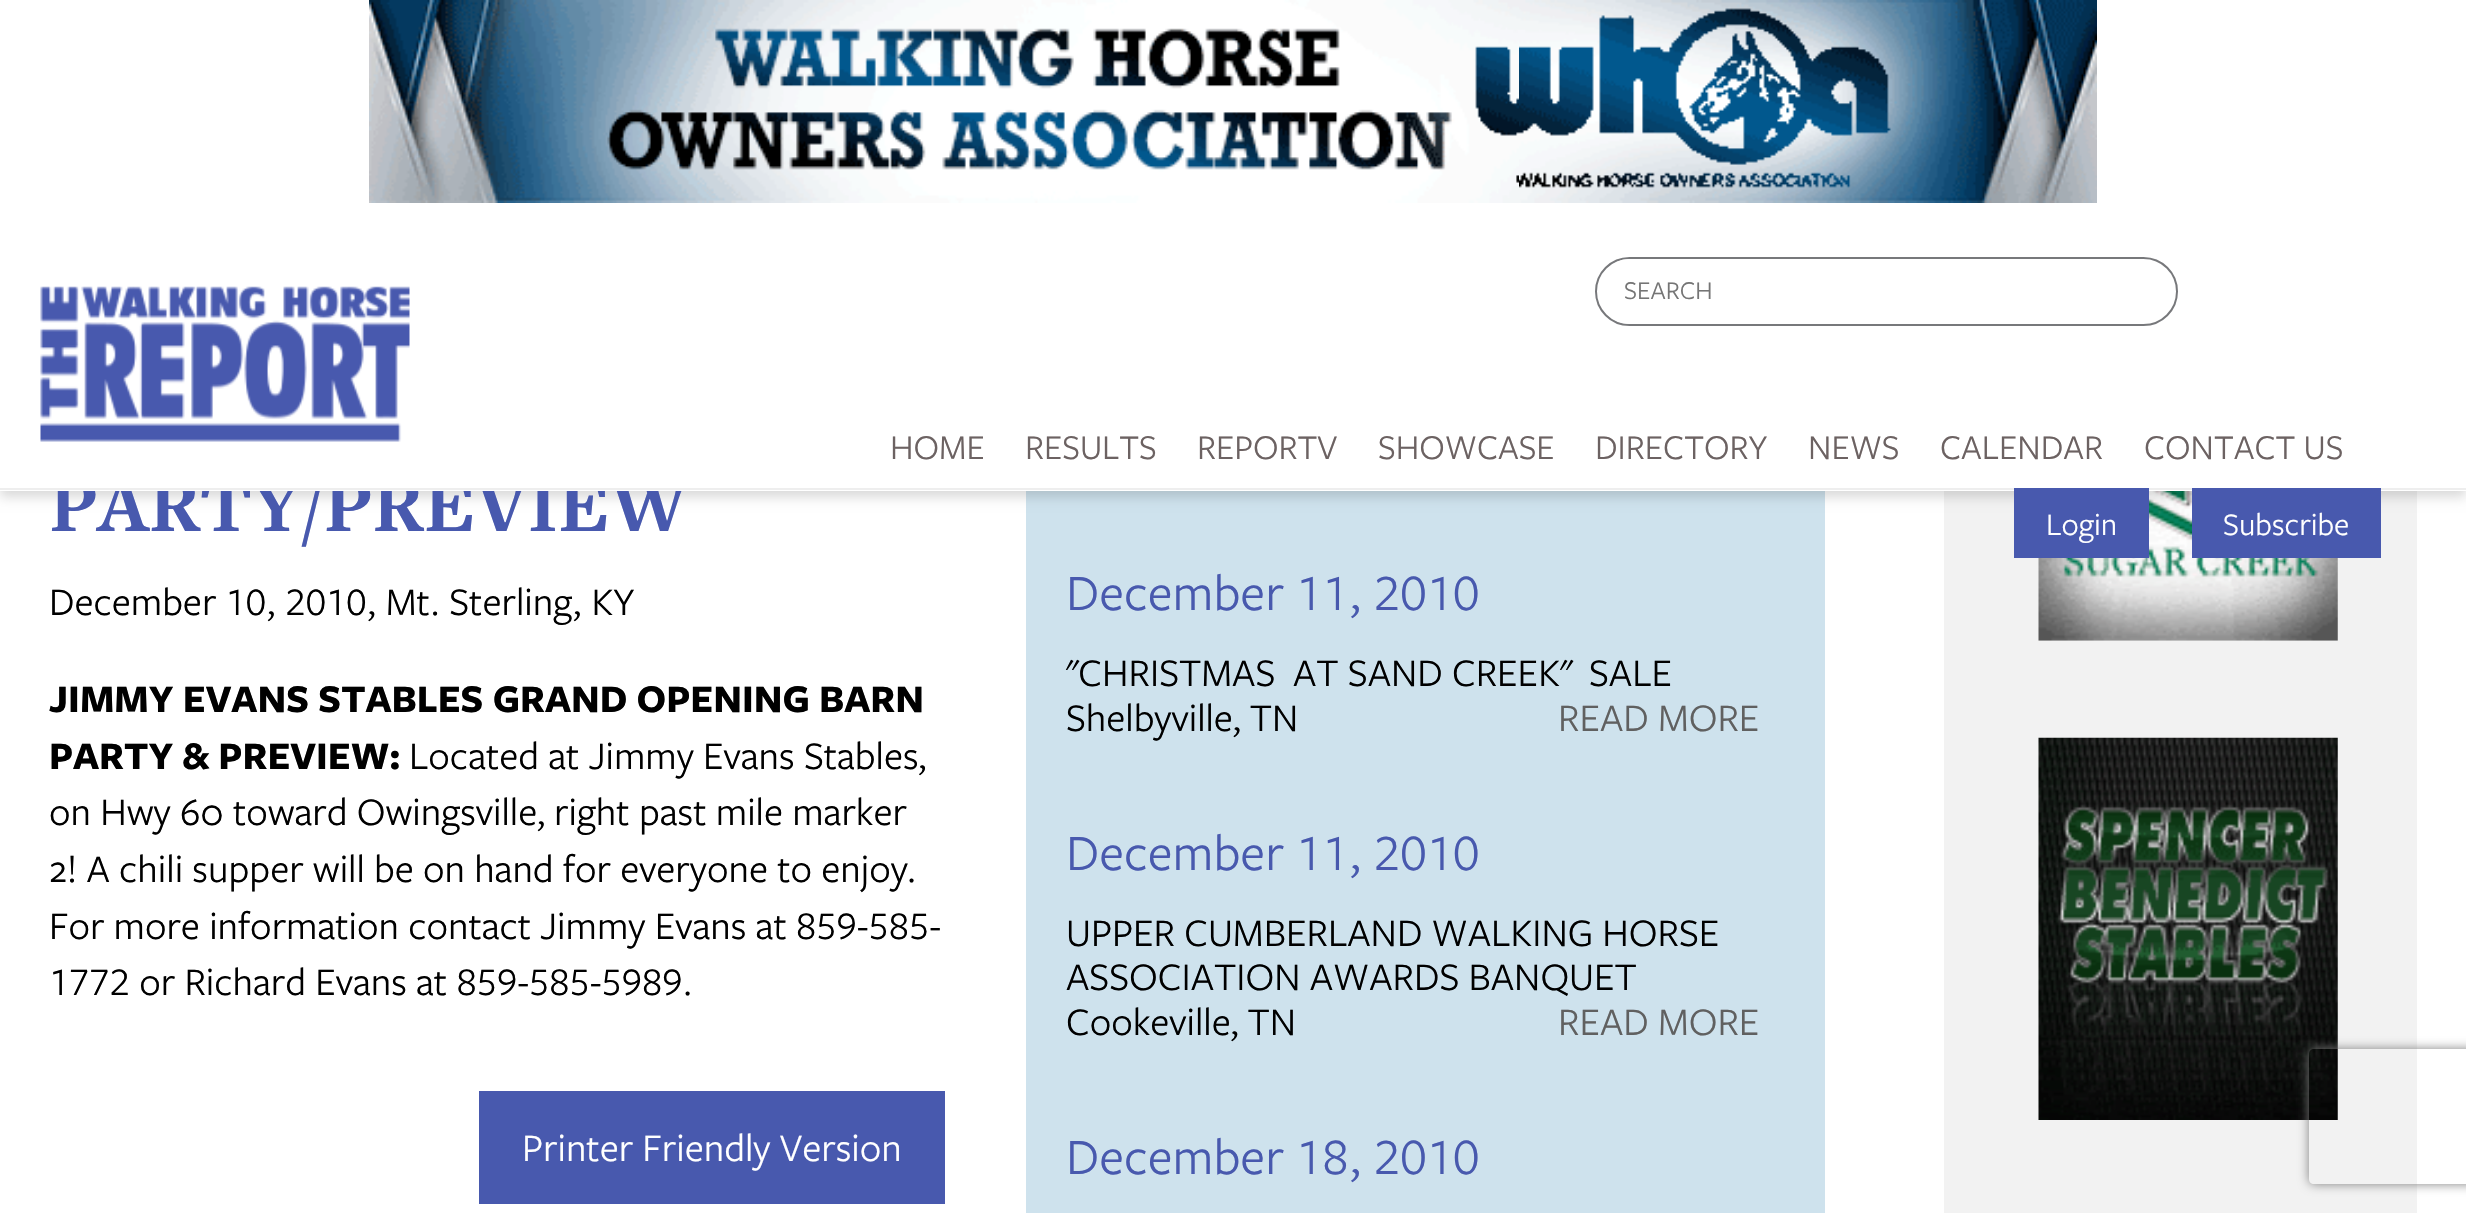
#include "include/core/SkBlurTypes.h"
#include "include/core/SkCanvas.h"
#include "include/core/SkData.h"
#include "include/core/SkFont.h"
#include "include/core/SkFontMgr.h"
#include "include/core/SkImage.h"
#include "include/core/SkMaskFilter.h"
#include "include/core/SkPaint.h"
#include "include/core/SkPathBuilder.h"
#include "include/core/SkTextBlob.h"
#include "include/effects/SkDashPathEffect.h"
#include "include/effects/SkGradientShader.h"
#include "include/utils/SkParsePath.h"

extern sk_sp<SkFontMgr> fontMgr;

void draw(SkCanvas* canvas) {
    SkPaint p;
    p.setAntiAlias(true);
    auto font = [&](const char* family, int weight, float size, bool italic = false) {
        SkFontStyle style(weight, SkFontStyle::kNormal_Width,
            italic ? SkFontStyle::kItalic_Slant : SkFontStyle::kUpright_Slant);
        SkFont result(fontMgr->matchFamilyStyle(family, style), size);
        result.setSubpixel(true);
        return result;
    };
    auto drawPhoto = [&](const char* path, float l, float t, float r, float b) {
        auto image = SkImages::DeferredFromEncodedData(SkData::MakeFromFileName(path));
        canvas->drawImageRect(image, SkRect::MakeLTRB(l, t, r, b), SkSamplingOptions());
    };
    canvas->clear(0xFFFFFFFF);
    p.setColor(0xFFCEE2ED);
    canvas->drawRect(SkRect::MakeLTRB(1026, 491, 1825, 1213), p);
    p.setColor(0xFFF2F2F2);
    canvas->drawRect(SkRect::MakeLTRB(1944, 491, 2417, 1213), p);
    drawPhoto("media/3.png", 2038, 491, 2338, 641);
    p.setColor(0x26000000);
    p.setMaskFilter(SkMaskFilter::MakeBlur(kNormal_SkBlurStyle, 5.5f));
    canvas->drawRect(SkRect::MakeLTRB(0, 7, 2466, 497), p);
    p.setMaskFilter(nullptr);
    auto font1 = font("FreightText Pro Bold", 700, 81);
    p.setColor(0xFF4859AE);
    canvas->drawString("PARTY/PREVIEW", 49, 531, font1, p);
    p.setColor(0xFFFFFFFF);
    canvas->drawRect(SkRect::MakeLTRB(0, 0, 2466, 491), p);
    p.setColor(0xFFEEEEEE);
    canvas->drawRect(SkRect::MakeLTRB(0, 488, 2466, 490), p);
    drawPhoto("media/1.png", 369, 0, 2097, 203);
    drawPhoto("media/2.png", 40, 286, 410, 442);
    auto font2 = font("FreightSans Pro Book", 400, 36);
    p.setColor(0xFF6C6262);
    {
        const struct { const char* s; float x, y; } items[] = {
            {"HOME", 890, 459},
            {"RESULTS", 1025, 459},
            {"REPORTV", 1197, 459},
            {"SHOWCASE", 1378, 459},
        };
        for (auto [s, x, y] : items) {
            canvas->drawString(s, x, y, font2, p);
        }
    }
    p.setStyle(SkPaint::kStroke_Style);
    p.setStrokeWidth(2);
    p.setColor(0xFF77787B);
    canvas->drawRoundRect(SkRect::MakeLTRB(1596, 258, 2177, 325), 33.5f, 33.5f, p);
    p.setStyle(SkPaint::kFill_Style);
    p.setColor(0xFFFFFFFF);
    canvas->drawPath(SkPathBuilder().moveTo(1630.5f, 259).lineTo(2124, 259).lineTo(2124, 324).lineTo(1630.5f, 324).cubicTo(1612.5f, 324, 1598, 309.5f, 1598, 291.5f).cubicTo(1598, 273.5f, 1612.5f, 259, 1630.5f, 259).close().detach(), p);
    auto font3 = font("FreightSans Pro Book", 400, 26.5f);
    p.setColor(0xFF757575);
    canvas->drawString("SEARCH", 1624, 299, font3, p);
    p.setColor(0xFF4859AE);
    canvas->drawRect(SkRect::MakeLTRB(2014, 488, 2149, 558), p);
    auto font4 = font("FreightSans Pro Book", 400, 32.5f);
    p.setColor(0xFFFFFFFF);
    canvas->drawString("Login", 2046, 535, font4, p);
    p.setColor(0xFF4859AE);
    canvas->drawRect(SkRect::MakeLTRB(2192, 488, 2381, 558), p);
    p.setColor(0xFFFFFFFF);
    canvas->drawString("Subscribe", 2223, 535, font4, p);
    p.setColor(0xFF6C6262);
    {
        const struct { const char* s; float x, y; } items[] = {
            {"DIRECTORY", 1595, 459},
            {"NEWS", 1808, 459},
            {"CALENDAR", 1940, 459},
            {"CONTACT US", 2144, 459},
        };
        for (auto [s, x, y] : items) {
            canvas->drawString(s, x, y, font2, p);
        }
    }
    auto font5 = font("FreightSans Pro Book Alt", 400, 40.5f);
    p.setColor(0xFF000000);
    canvas->drawString("December 10, 2010, Mt. Sterling, KY", 49, 615, font5, p);
    auto font6 = font("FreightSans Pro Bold", 700, 40.5f);
    canvas->drawString("JIMMY EVANS STABLES GRAND OPENING BARN", 49, 712, font6, p);
    canvas->drawString("PARTY & PREVIEW:", 49, 769, font6, p);
    auto font7 = font("FreightSans Pro Book", 400, 40.5f);
    {
        const struct { const char* s; float x, y; } items[] = {
            {"Located at Jimmy Evans Stables,", 409, 769},
            {"on Hwy 60 toward Owingsville, right past mile marker", 49, 825},
            {"2! A chili supper will be on hand for everyone to enjoy.", 49, 882},
        };
        for (auto [s, x, y] : items) {
            canvas->drawString(s, x, y, font7, p);
        }
    }
    canvas->drawString("For more information contact Jimmy Evans at 859-585-", 49, 939, font5, p);
    canvas->drawString("1772 or Richard Evans at 859-585-5989.", 49, 995, font5, p);
    p.setColor(0xFF4859AE);
    canvas->drawRect(SkRect::MakeLTRB(479, 1091, 945, 1204), p);
    p.setColor(0xFFFFFFFF);
    canvas->drawString("Printer Friendly Version", 522, 1161, font7, p);
    auto font8 = font("FreightSans Pro Book Alt", 400, 52.75f);
    p.setColor(0xFF4859AE);
    canvas->drawString("December 11, 2010", 1066, 610, font8, p);
    p.setColor(0xFF000000);
    canvas->drawString("\"CHRISTMAS", 1066, 686, font7, p);
    canvas->drawString("AT SAND CREEK\"", 1293, 686, font7, p);
    canvas->drawString("SALE", 1589, 686, font7, p);
    canvas->drawString("Shelbyville, TN", 1066, 731, font7, p);
    p.setColor(0xFF606060);
    canvas->drawString("READ MORE", 1558, 731, font7, p);
    p.setColor(0xFF4859AE);
    canvas->drawString("December 11, 2010", 1066, 870, font8, p);
    p.setColor(0xFF000000);
    {
        const struct { const char* s; float x, y; } items[] = {
            {"UPPER CUMBERLAND WALKING HORSE", 1066, 946},
            {"ASSOCIATION AWARDS BANQUET", 1066, 990},
            {"Cookeville, TN", 1066, 1035},
        };
        for (auto [s, x, y] : items) {
            canvas->drawString(s, x, y, font7, p);
        }
    }
    p.setColor(0xFF606060);
    canvas->drawString("READ MORE", 1558, 1035, font7, p);
    p.setColor(0xFF4859AE);
    canvas->drawString("December 18, 2010", 1066, 1174, font8, p);
    drawPhoto("media/4.png", 2038, 737, 2338, 1120);
    canvas->save();
    canvas->clipPath(SkPathBuilder(SkPathFillType::kEvenOdd).moveTo(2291, 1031).lineTo(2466, 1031).lineTo(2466, 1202).lineTo(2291, 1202).close().moveTo(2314, 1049).lineTo(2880, 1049).cubicTo(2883, 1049, 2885, 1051, 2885, 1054).lineTo(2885, 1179).cubicTo(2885, 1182, 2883, 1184, 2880, 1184).lineTo(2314, 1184).cubicTo(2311, 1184, 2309, 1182, 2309, 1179).lineTo(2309, 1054).cubicTo(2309, 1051, 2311, 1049, 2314, 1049).close().detach(), true);
    p.setColor(0xFF808080);
    p.setMaskFilter(SkMaskFilter::MakeBlur(kNormal_SkBlurStyle, 5.5f));
    canvas->drawRoundRect(SkRect::MakeLTRB(2309, 1049, 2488, 1184), 5, 5, p);
    p.setMaskFilter(nullptr);
    canvas->restore();
}
